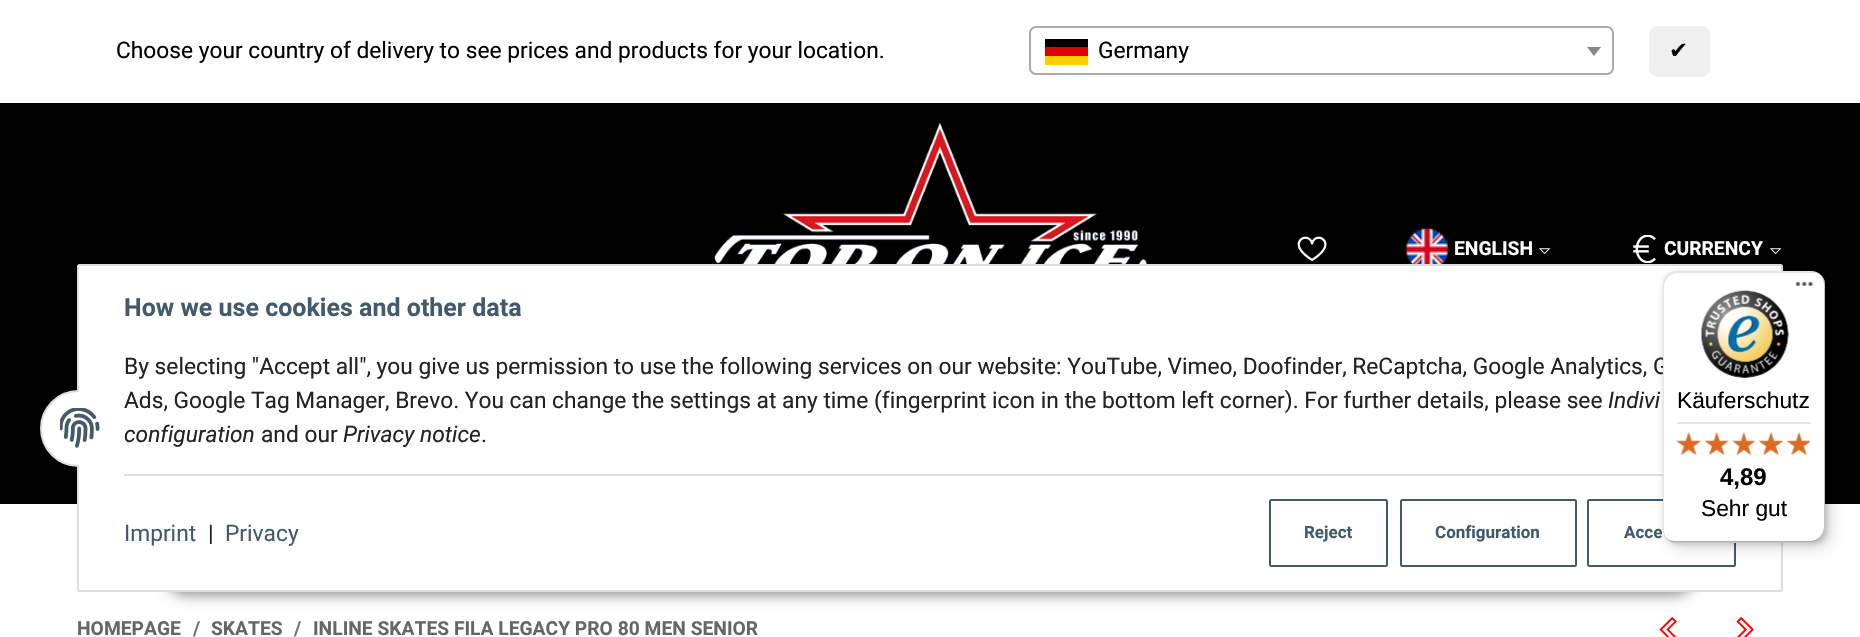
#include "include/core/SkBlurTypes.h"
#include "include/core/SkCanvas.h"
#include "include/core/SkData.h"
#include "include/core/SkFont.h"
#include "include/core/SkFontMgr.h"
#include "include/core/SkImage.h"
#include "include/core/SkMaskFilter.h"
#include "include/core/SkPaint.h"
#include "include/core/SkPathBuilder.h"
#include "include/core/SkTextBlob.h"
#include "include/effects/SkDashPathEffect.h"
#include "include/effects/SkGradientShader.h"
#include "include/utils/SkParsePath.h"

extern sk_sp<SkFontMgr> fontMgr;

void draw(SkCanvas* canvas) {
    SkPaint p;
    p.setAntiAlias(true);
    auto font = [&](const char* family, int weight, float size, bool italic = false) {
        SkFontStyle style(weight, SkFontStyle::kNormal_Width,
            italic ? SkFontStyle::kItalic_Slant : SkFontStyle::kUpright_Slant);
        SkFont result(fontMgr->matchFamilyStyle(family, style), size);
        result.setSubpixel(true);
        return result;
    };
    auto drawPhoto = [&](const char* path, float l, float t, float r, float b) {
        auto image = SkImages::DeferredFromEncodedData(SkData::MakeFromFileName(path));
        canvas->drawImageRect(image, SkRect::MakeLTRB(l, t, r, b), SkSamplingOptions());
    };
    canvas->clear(0xFFFFFFFF);
    auto font1 = font("Roboto", 400, 22.75f);
    p.setColor(0xFF000000);
    canvas->drawString("Choose your country of delivery to see prices and products for your location.", 116, 58, font1, p);
    p.setStyle(SkPaint::kStroke_Style);
    p.setStrokeWidth(2);
    p.setColor(0xFFAAAAAA);
    canvas->drawRoundRect(SkRect::MakeLTRB(1030, 27, 1613, 74), 6, 6, p);
    p.setStyle(SkPaint::kFill_Style);
    {
        const struct { float l, t, r, b; SkColor color; } items[] = {
            {1045, 39, 1088, 47, 0xFF000000},
            {1045, 47, 1088, 56, 0xFFDD0000},
            {1045, 56, 1088, 65, 0xFFFFCE00},
        };
        for (auto [l, t, r, b, color] : items) {
            p.setColor(color);
            canvas->drawRect(SkRect::MakeLTRB(l, t, r, b), p);
        }
    }
    p.setColor(0xFF000000);
    canvas->drawString("Germany", 1098, 58, font1, p);
    p.setColor(0xFF888888);
    canvas->drawPath(SkPathBuilder().moveTo(1587, 47).lineTo(1601, 47).lineTo(1594, 56).close().detach(), p);
    p.setColor(0xFFEFEFEF);
    canvas->drawRoundRect(SkRect::MakeLTRB(1649, 26, 1710, 77), 9, 9, p);
    auto font2 = font("DejaVu Sans", 400, 22.75f);
    p.setColor(0xFF000000);
    canvas->drawString("✔", 1669, 58, font2, p);
    canvas->drawRect(SkRect::MakeLTRB(0, 103, 1860, 504), p);
    drawPhoto("media/1.png", 714, 122, 1147, 264);
    drawPhoto("media/2.png", 1297, 236, 1327, 262);
    drawPhoto("media/3.png", 1406, 228, 1448, 264);
    auto font3 = font("Roboto", 700, 19.25f);
    p.setColor(0xFFFFFFFF);
    canvas->drawString("ENGLISH", 1454, 255, font3, p);
    drawPhoto("media/4.png", 1538, 248, 1551, 254);
    drawPhoto("media/5.png", 1633, 235, 1656, 263);
    canvas->drawString("CURRENCY", 1664, 255, font3, p);
    drawPhoto("media/4.png", 1769, 248, 1782, 254);
    drawPhoto("media/19.png", 1659, 616, 1677, 637);
    p.setColor(0x73000000);
    p.setMaskFilter(SkMaskFilter::MakeBlur(kNormal_SkBlurStyle, 7));
    canvas->drawRoundRect(SkRect::MakeLTRB(165, 550, 1696, 595), 22.5f, 22.5f, p);
    p.setMaskFilter(nullptr);
    p.setColor(0xFFFFFFFF);
    canvas->drawRoundRect(SkRect::MakeLTRB(78, 265, 1782, 591), 1.5f, 1.5f, p);
    p.setStyle(SkPaint::kStroke_Style);
    p.setColor(0xFFDDDDDD);
    canvas->drawRoundRect(SkRect::MakeLTRB(78, 265, 1782, 591), 1.5f, 1.5f, p);
    p.setStyle(SkPaint::kFill_Style);
    p.setColor(0xFFFFFFFF);
    canvas->drawRoundRect(SkRect::MakeLTRB(41, 391, 118, 466), 37.5f, 37.5f, p);
    p.setStyle(SkPaint::kStroke_Style);
    p.setColor(0xFFDDDDDD);
    canvas->drawRoundRect(SkRect::MakeLTRB(41, 391, 118, 466), 37.5f, 37.5f, p);
    p.setStyle(SkPaint::kFill_Style);
    p.setColor(0xFFFFFFFF);
    canvas->drawRect(SkRect::MakeLTRB(79, 390, 119, 467), p);
    drawPhoto("media/6.png", 60, 408, 100, 448);
    auto font4 = font("Roboto", 700, 25);
    p.setColor(0xFF435A6B);
    canvas->drawString("How we use cookies and other data", 124, 316, font4, p);
    p.setColor(0xFF222222);
    canvas->drawString("By selecting \"Accept all\", you give us permission to use the following services on our website: YouTube, Vimeo, Doofinder, ReCaptcha, Google Analytics, G", 124, 374, font1, p);
    canvas->drawString("Ads, Google Tag Manager, Brevo. You can change the settings at any time (fingerprint icon in the bottom left corner). For further details, please see", 124, 408, font1, p);
    auto font5 = font("Roboto", 400, 22.75f, true);
    canvas->drawString("Indivi", 1608, 408, font5, p);
    canvas->drawString("configuration", 124, 442, font5, p);
    canvas->drawString("and our", 261, 442, font1, p);
    canvas->drawString("Privacy notice", 343, 442, font5, p);
    canvas->drawString(".", 481, 442, font1, p);
    p.setColor(0xFFDDE1E4);
    canvas->drawRect(SkRect::MakeLTRB(124, 474, 1663, 476), p);
    p.setColor(0xFF435A6B);
    canvas->drawString("Imprint", 124, 541, font1, p);
    p.setColor(0xFF222222);
    canvas->drawString("|", 208, 541, font1, p);
    p.setColor(0xFF435A6B);
    canvas->drawString("Privacy", 225, 541, font1, p);
    p.setStyle(SkPaint::kStroke_Style);
    canvas->drawRoundRect(SkRect::MakeLTRB(1270, 500, 1387, 566), 1.5f, 1.5f, p);
    auto font6 = font("Roboto", 700, 17);
    p.setStyle(SkPaint::kFill_Style);
    canvas->drawString("Reject", 1304, 538, font6, p);
    p.setStyle(SkPaint::kStroke_Style);
    canvas->drawRoundRect(SkRect::MakeLTRB(1401, 500, 1576, 566), 1.5f, 1.5f, p);
    p.setStyle(SkPaint::kFill_Style);
    canvas->drawString("Configuration", 1435, 538, font6, p);
    p.setStyle(SkPaint::kStroke_Style);
    canvas->drawRoundRect(SkRect::MakeLTRB(1588, 500, 1735, 566), 1.5f, 1.5f, p);
    p.setStyle(SkPaint::kFill_Style);
    canvas->drawString("Acce", 1624, 538, font6, p);
    p.setColor(0x26000000);
    p.setMaskFilter(SkMaskFilter::MakeBlur(kNormal_SkBlurStyle, 7));
    canvas->drawRoundRect(SkRect::MakeLTRB(1668, 277, 1831, 548), 14, 14, p);
    p.setMaskFilter(nullptr);
    p.setMaskFilter(SkMaskFilter::MakeBlur(kNormal_SkBlurStyle, 2));
    canvas->drawRoundRect(SkRect::MakeLTRB(1664, 273, 1827, 544), 14, 14, p);
    p.setMaskFilter(nullptr);
    p.setColor(0xFFFFFFFF);
    canvas->drawRoundRect(SkRect::MakeLTRB(1663, 271, 1825, 543), 14, 14, p);
    p.setColor(0x1A000000);
    canvas->drawPath(SkPathBuilder().moveTo(1678, 273).lineTo(1813, 273).cubicTo(1816, 273, 1819, 274, 1821, 276).cubicTo(1819, 273, 1815, 271, 1811, 271).lineTo(1677, 271).cubicTo(1669, 271, 1663, 277, 1663, 285).lineTo(1663, 529).cubicTo(1663, 534, 1665, 538, 1669, 540).cubicTo(1666, 538, 1664, 534, 1664, 530).lineTo(1664, 287).cubicTo(1664, 279, 1671, 273, 1678, 273).close().detach(), p);
    p.setColor(0x33000000);
    canvas->drawPath(SkPathBuilder().moveTo(1666, 537).cubicTo(1668, 541, 1672, 543, 1677, 543).lineTo(1811, 543).cubicTo(1819, 543, 1825, 537, 1825, 529).lineTo(1825, 285).cubicTo(1825, 280, 1823, 276, 1819, 274).cubicTo(1822, 276, 1824, 280, 1824, 284).lineTo(1824, 527).cubicTo(1824, 534, 1817, 541, 1810, 541).lineTo(1675, 541).cubicTo(1671, 541, 1668, 540, 1666, 537).close().detach(), p);
    p.setColor(0x33323232);
    canvas->drawPath(SkPathBuilder().moveTo(1666, 537).cubicTo(1668, 541, 1672, 543, 1677, 543).lineTo(1811, 543).cubicTo(1819, 543, 1825, 537, 1825, 529).lineTo(1825, 285).cubicTo(1825, 281, 1824, 278, 1821, 276).cubicTo(1823, 278, 1824, 281, 1824, 284).lineTo(1824, 527).cubicTo(1824, 535, 1818, 541, 1810, 541).lineTo(1675, 541).cubicTo(1672, 541, 1668, 540, 1666, 537).close().detach(), p);
    p.setColor(0x4DFFFFFF);
    canvas->drawPath(SkPathBuilder().moveTo(1666, 537).cubicTo(1668, 541, 1672, 543, 1677, 543).lineTo(1811, 543).cubicTo(1819, 543, 1825, 537, 1825, 529).lineTo(1825, 285).cubicTo(1825, 280, 1823, 276, 1820, 274).cubicTo(1822, 277, 1824, 280, 1824, 284).lineTo(1824, 528).cubicTo(1824, 535, 1818, 542, 1810, 542).lineTo(1676, 542).cubicTo(1672, 542, 1668, 540, 1666, 537).close().detach(), p);
    drawPhoto("media/7.png", 1795, 281, 1813, 286);
    drawPhoto("media/8.png", 1701, 290, 1789, 378);
    auto font7 = font("Liberation Sans", 400, 22.75f);
    p.setColor(0xFF000000);
    canvas->drawString("Käuferschutz", 1677, 408, font7, p);
    p.setColor(0xFFE5E5E5);
    canvas->drawRect(SkRect::MakeLTRB(1677, 422, 1811, 424), p);
    drawPhoto("media/9.png", 1676, 432, 1701, 455);
    drawPhoto("media/10.png", 1705, 432, 1729, 455);
    drawPhoto("media/11.png", 1732, 433, 1755, 455);
    drawPhoto("media/12.png", 1759, 432, 1783, 455);
    drawPhoto("media/13.png", 1787, 432, 1811, 455);
    drawPhoto("media/14.png", 1676, 432, 1701, 455);
    drawPhoto("media/15.png", 1704, 432, 1729, 455);
    drawPhoto("media/16.png", 1732, 432, 1756, 455);
    drawPhoto("media/17.png", 1758, 432, 1783, 455);
    drawPhoto("media/18.png", 1786, 432, 1810, 455);
    auto font8 = font("Liberation Sans", 700, 24);
    p.setColor(0xFF000000);
    canvas->drawString("4,89", 1720, 485, font8, p);
    canvas->drawString("Sehr gut", 1701, 516, font7, p);
    p.setColor(0xFF666666);
    canvas->drawString("HOMEPAGE", 77, 635, font3, p);
    p.setColor(0xFF6C757D);
    canvas->drawString("/", 193, 635, font3, p);
    p.setColor(0xFF666666);
    canvas->drawString("SKATES", 211, 635, font3, p);
    p.setColor(0xFF6C757D);
    canvas->drawString("/", 294, 635, font3, p);
    p.setColor(0xFF666666);
    canvas->drawString("INLINE SKATES FILA LEGACY PRO 80 MEN SENIOR", 313, 635, font3, p);
    drawPhoto("media/20.png", 1736, 616, 1754, 637);
}
